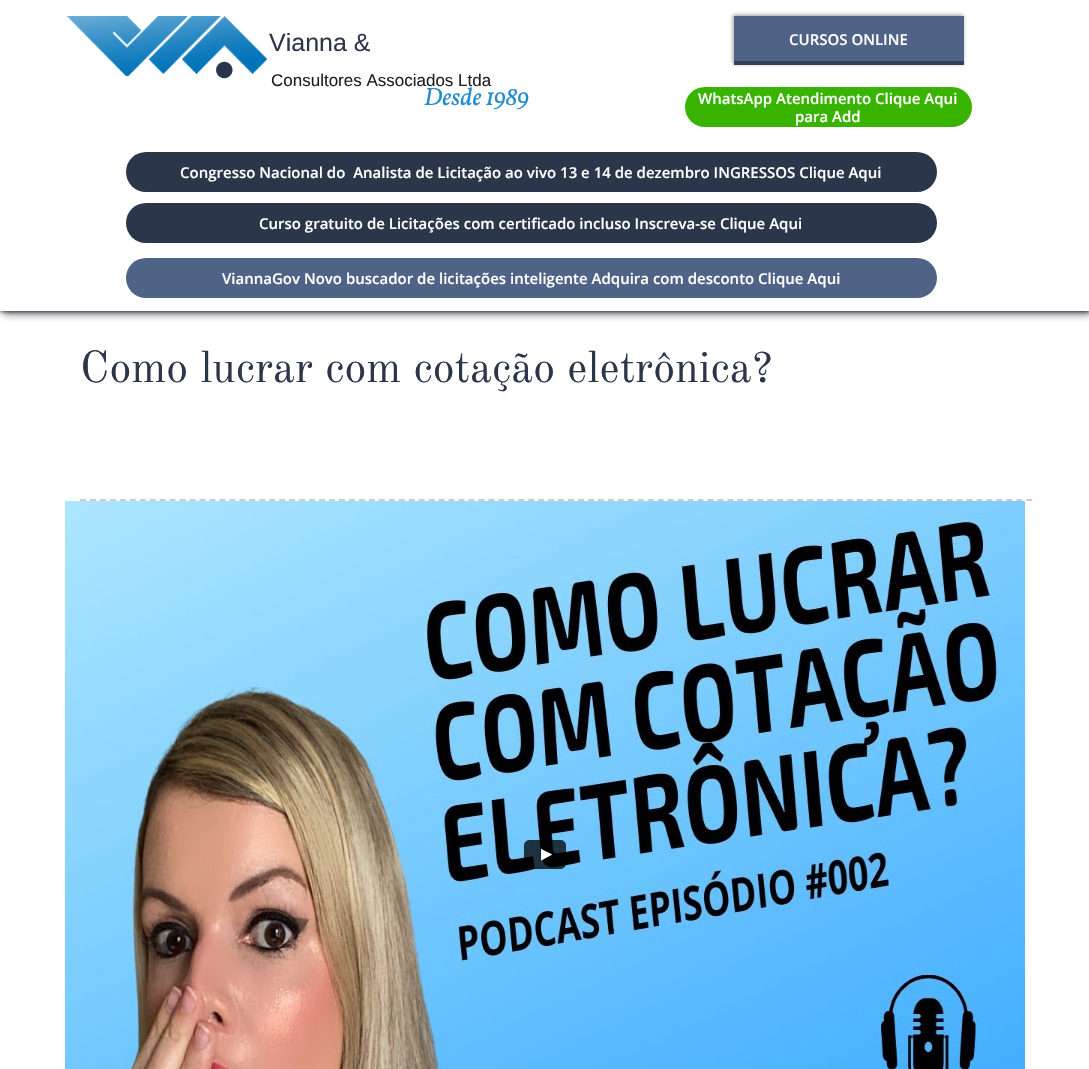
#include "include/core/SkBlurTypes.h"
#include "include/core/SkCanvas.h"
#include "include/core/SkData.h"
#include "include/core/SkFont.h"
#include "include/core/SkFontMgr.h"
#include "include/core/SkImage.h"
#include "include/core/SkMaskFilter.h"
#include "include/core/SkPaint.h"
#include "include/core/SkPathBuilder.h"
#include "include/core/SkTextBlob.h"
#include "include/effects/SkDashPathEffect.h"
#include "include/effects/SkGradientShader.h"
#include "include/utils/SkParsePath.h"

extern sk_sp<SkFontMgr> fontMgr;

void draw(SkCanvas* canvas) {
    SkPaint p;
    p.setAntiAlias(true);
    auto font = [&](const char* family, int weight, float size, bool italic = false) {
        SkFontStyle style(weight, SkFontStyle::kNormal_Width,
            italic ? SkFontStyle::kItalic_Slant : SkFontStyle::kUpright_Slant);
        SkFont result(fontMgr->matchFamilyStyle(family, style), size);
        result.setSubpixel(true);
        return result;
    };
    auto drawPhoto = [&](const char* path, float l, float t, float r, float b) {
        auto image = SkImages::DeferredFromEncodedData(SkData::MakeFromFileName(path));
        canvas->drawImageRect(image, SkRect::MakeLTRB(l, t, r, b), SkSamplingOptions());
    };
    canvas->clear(0xFFFFFFFF);
    canvas->save();
    canvas->clipRect(SkRect::MakeLTRB(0, 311, 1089, 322));
    p.setColor(0x802B364A);
    p.setMaskFilter(SkMaskFilter::MakeBlur(kNormal_SkBlurStyle, 4));
    canvas->drawRect(SkRect::MakeLTRB(4, 4, 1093, 315), p);
    p.setMaskFilter(nullptr);
    canvas->restore();
    canvas->save();
    canvas->clipRect(SkRect::MakeLTRB(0, 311, 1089, 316));
    p.setColor(0xFF000000);
    p.setMaskFilter(SkMaskFilter::MakeBlur(kNormal_SkBlurStyle, 2.5f));
    canvas->drawRect(SkRect::MakeLTRB(0, 0, 1089, 311), p);
    p.setMaskFilter(nullptr);
    canvas->restore();
    auto font1 = font("Gravitas One", 400, 62);
    p.setColor(0xFF2B364A);
    canvas->drawString(".", 212, 77, font1, p);
    drawPhoto("media/1.png", 67, 16, 267, 76);
    auto font2 = font("Liberation Sans", 400, 25);
    canvas->drawString("Vianna &", 269, 51, font2, p);
    p.setColor(0xFF4F6387);
    canvas->drawRect(SkRect::MakeLTRB(734, 16, 964, 61), p);
    canvas->save();
    canvas->clipPath(SkPathBuilder(SkPathFillType::kEvenOdd).moveTo(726, 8).lineTo(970, 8).lineTo(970, 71).lineTo(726, 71).close().moveTo(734, 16).lineTo(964, 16).lineTo(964, 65).lineTo(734, 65).close().detach(), true);
    p.setColor(0xFF999999);
    p.setMaskFilter(SkMaskFilter::MakeBlur(kNormal_SkBlurStyle, 2));
    canvas->drawRect(SkRect::MakeLTRB(733, 15, 963, 64), p);
    p.setMaskFilter(nullptr);
    canvas->restore();
    p.setColor(0xFF334057);
    canvas->drawRect(SkRect::MakeLTRB(734, 61, 964, 65), p);
    auto font3 = font("Open Sans", 600, 15);
    p.setColor(0xFFFFFFFF);
    canvas->drawString("CURSOS ONLINE", 789, 45, font3, p);
    auto font4 = font("Liberation Sans", 400, 17);
    p.setColor(0xFF202020);
    canvas->drawString("Consultores Associados Ltda", 271, 86, font4, p);
    auto font5 = font("Vollkorn", 400, 25);
    p.setColor(0xFF238CD1);
    canvas->drawString("Desde 1989", 424, 105, font5, p);
    p.setColor(0xFF37B300);
    canvas->drawRoundRect(SkRect::MakeLTRB(685, 87, 972, 127), 20, 20, p);
    p.setColor(0xFFFFFFFF);
    canvas->drawString("WhatsApp Atendimento Clique Aqui", 698, 104, font3, p);
    canvas->drawString("para Add", 795, 122, font3, p);
    p.setColor(0xFF2B364A);
    canvas->drawRoundRect(SkRect::MakeLTRB(126, 152, 937, 192), 20, 20, p);
    p.setColor(0xFFFFFFFF);
    canvas->drawString("Congresso Nacional do  Analista de Licitação ao vivo 13 e 14 de dezembro INGRESSOS Clique Aqui", 180, 178, font3, p);
    p.setColor(0xFF2B364A);
    canvas->drawRoundRect(SkRect::MakeLTRB(126, 203, 937, 243), 20, 20, p);
    p.setColor(0xFFFFFFFF);
    canvas->drawString("Curso gratuito de Licitações com certificado incluso Inscreva-se Clique Aqui", 259, 229, font3, p);
    p.setColor(0xFF4F6387);
    canvas->drawRoundRect(SkRect::MakeLTRB(126, 258, 937, 298), 20, 20, p);
    p.setColor(0xFFFFFFFF);
    canvas->drawString("ViannaGov Novo buscador de licitações inteligente Adquira com desconto Clique Aqui", 222, 284, font3, p);
    p.setStyle(SkPaint::kStroke_Style);
    p.setStrokeWidth(2);
    p.setColor(0xFFCCCCCC);
    p.setPathEffect(SkDashPathEffect::Make({{6, 3.96f}}, 0));
    canvas->drawPath(SkPathBuilder().moveTo(80, 500).lineTo(1032, 500).detach(), p);
    p.setPathEffect(nullptr);
    auto font6 = font("Old Standard TT", 400, 44);
    p.setStyle(SkPaint::kFill_Style);
    p.setColor(0xFF2B364A);
    canvas->drawString("Como lucrar com cotação eletrônica?", 80, 382, font6, p);
    drawPhoto("media/2.png", 65, 501, 1025, 1069);
    drawPhoto("media/3.png", 524, 840, 566, 869);
}
